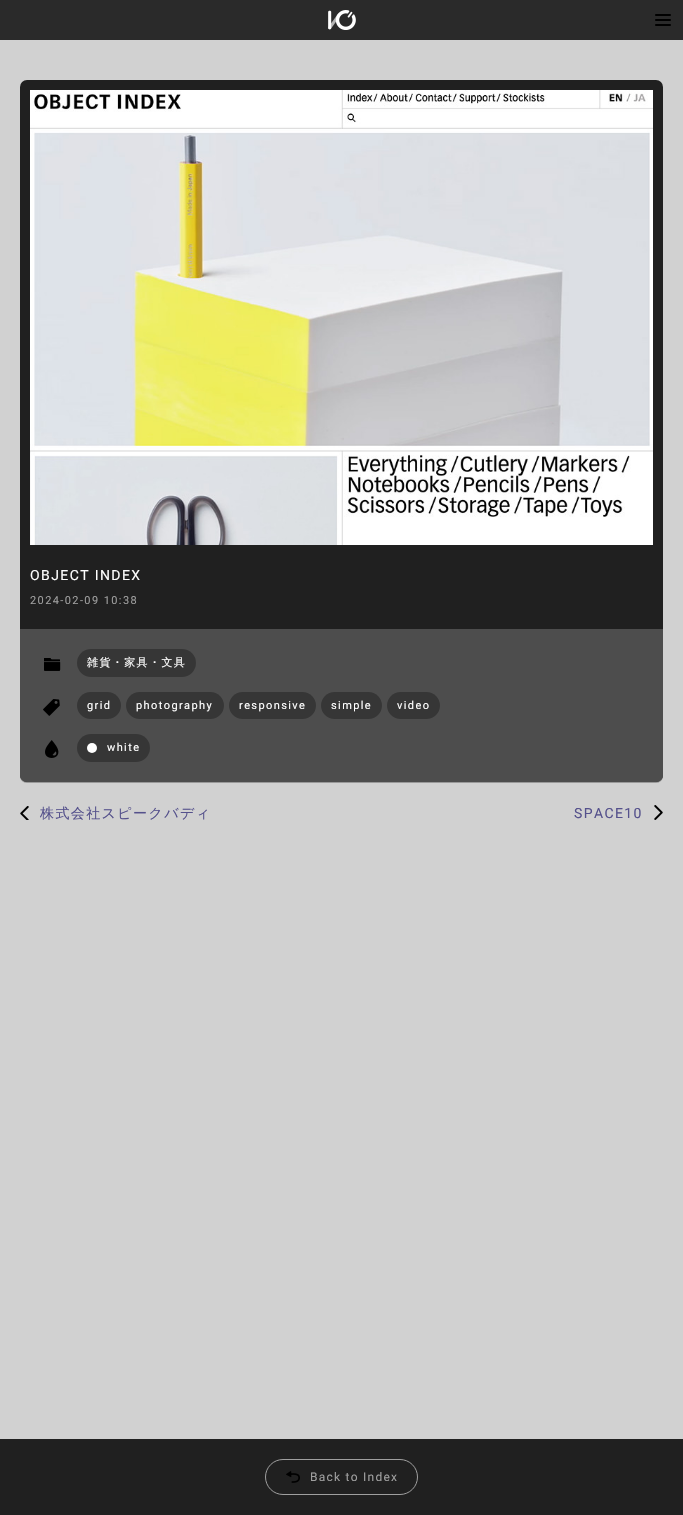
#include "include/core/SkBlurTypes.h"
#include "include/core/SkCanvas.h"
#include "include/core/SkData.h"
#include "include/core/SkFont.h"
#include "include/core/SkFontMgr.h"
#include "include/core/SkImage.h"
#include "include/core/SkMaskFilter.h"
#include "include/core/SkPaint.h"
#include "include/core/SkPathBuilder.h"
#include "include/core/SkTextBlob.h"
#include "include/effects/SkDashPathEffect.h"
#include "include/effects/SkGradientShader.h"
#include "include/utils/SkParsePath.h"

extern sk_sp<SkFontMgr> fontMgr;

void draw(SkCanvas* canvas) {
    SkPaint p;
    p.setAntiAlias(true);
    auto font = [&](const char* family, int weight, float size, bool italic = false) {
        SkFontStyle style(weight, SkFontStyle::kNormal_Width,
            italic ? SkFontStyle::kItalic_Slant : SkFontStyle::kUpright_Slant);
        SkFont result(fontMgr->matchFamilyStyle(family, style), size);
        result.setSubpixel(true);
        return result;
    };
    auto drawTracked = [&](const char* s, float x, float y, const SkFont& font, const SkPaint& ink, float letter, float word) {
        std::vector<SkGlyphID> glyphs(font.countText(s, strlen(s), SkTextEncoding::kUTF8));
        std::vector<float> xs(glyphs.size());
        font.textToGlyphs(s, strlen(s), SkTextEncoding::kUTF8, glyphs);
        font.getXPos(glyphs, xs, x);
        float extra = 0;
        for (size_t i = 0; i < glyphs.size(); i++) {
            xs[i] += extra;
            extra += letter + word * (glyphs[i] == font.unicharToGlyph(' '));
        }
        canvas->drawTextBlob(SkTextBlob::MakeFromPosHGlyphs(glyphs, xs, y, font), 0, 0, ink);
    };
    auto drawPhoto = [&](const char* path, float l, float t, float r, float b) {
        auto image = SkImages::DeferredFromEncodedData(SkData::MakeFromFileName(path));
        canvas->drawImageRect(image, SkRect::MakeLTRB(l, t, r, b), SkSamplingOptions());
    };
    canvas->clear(0xFFD1D1D1);
    p.setColor(0xFF2A2A2A);
    canvas->drawRect(SkRect::MakeLTRB(0, 0, 683, 40), p);
    drawPhoto("media/1.png", 328, 10, 356, 30);
    drawPhoto("media/2.png", 655, 14, 671, 26);
    p.setColor(0xFF999999);
    canvas->drawPath(SkPathBuilder().moveTo(20, 775).lineTo(20, 776).cubicTo(20, 780, 23, 783, 27, 783).lineTo(656, 783).cubicTo(660, 783, 663, 780, 663, 776).lineTo(663, 775).cubicTo(663, 779, 660, 782, 656, 782).lineTo(27, 782).cubicTo(23, 782, 20, 779, 20, 775).close().detach(), p);
    p.setColor(0xFF202020);
    canvas->drawRoundRect(SkRect::MakeLTRB(20, 80, 663, 782), 7, 7, p);
    drawPhoto("media/3.png", 30, 90, 653, 545);
    auto font1 = font("Roboto", 400, 14);
    p.setColor(0xFFFFFFFF);
    drawTracked("OBJECT INDEX", 30, 580, font1, p, 1.4f, 0);
    auto font2 = font("Roboto", 400, 11);
    p.setColor(0xFF9F9F9F);
    drawTracked("2024-02-09 10:38", 30, 604, font2, p, 1.4f, 0);
    p.setColor(0xFF4D4D4D);
    canvas->drawPath(SkPathBuilder().moveTo(20, 629).lineTo(663, 629).lineTo(663, 775).cubicTo(663, 779, 660, 782, 656, 782).lineTo(27, 782).cubicTo(23, 782, 20, 779, 20, 775).close().detach(), p);
    drawPhoto("media/4.png", 44, 658, 61, 671);
    p.setColor(0xFF363636);
    canvas->drawRoundRect(SkRect::MakeLTRB(77, 649, 196, 677), 14, 14, p);
    auto font3 = font("WenQuanYi Zen Hei", 500, 11);
    p.setColor(0xFFFFFFFF);
    drawTracked("雑貨・家具・文具", 87, 666, font3, p, 1.4f, 0);
    drawPhoto("media/5.png", 43, 699, 60, 716);
    p.setColor(0xFF363636);
    canvas->drawRoundRect(SkRect::MakeLTRB(77, 692, 121, 719), 13.5f, 13.5f, p);
    p.setColor(0xFFFFFFFF);
    drawTracked("grid", 87, 709, font2, p, 1.4f, 0);
    p.setColor(0xFF363636);
    canvas->drawRoundRect(SkRect::MakeLTRB(126, 692, 224, 719), 13.5f, 13.5f, p);
    p.setColor(0xFFFFFFFF);
    drawTracked("photography", 136, 709, font2, p, 1.4f, 0);
    p.setColor(0xFF363636);
    canvas->drawRoundRect(SkRect::MakeLTRB(229, 692, 316, 719), 13.5f, 13.5f, p);
    p.setColor(0xFFFFFFFF);
    drawTracked("responsive", 239, 709, font2, p, 1.4f, 0);
    p.setColor(0xFF363636);
    canvas->drawRoundRect(SkRect::MakeLTRB(321, 692, 382, 719), 13.5f, 13.5f, p);
    p.setColor(0xFFFFFFFF);
    drawTracked("simple", 331, 709, font2, p, 1.4f, 0);
    p.setColor(0xFF363636);
    canvas->drawRoundRect(SkRect::MakeLTRB(387, 692, 440, 719), 13.5f, 13.5f, p);
    p.setColor(0xFFFFFFFF);
    drawTracked("video", 397, 709, font2, p, 1.4f, 0);
    drawPhoto("media/6.png", 45, 740, 59, 758);
    p.setColor(0xFF363636);
    canvas->drawRoundRect(SkRect::MakeLTRB(77, 734, 150, 762), 14, 14, p);
    p.setColor(0xFFFFFFFF);
    canvas->drawCircle(92, 748, 5, p);
    drawTracked("white", 107, 751, font2, p, 1.4f, 0);
    drawPhoto("media/7.png", 20, 806, 29, 820);
    auto font4 = font("WenQuanYi Zen Hei", 500, 14);
    p.setColor(0xFF55518C);
    drawTracked("株式会社スピークバディ", 40, 818, font4, p, 1.4f, 0);
    drawTracked("SPACE10", 574, 818, font1, p, 1.4f, 0);
    drawPhoto("media/8.png", 654, 805, 663, 820);
    p.setColor(0xFF202020);
    canvas->drawRect(SkRect::MakeLTRB(0, 1439, 683, 1515), p);
    p.setStyle(SkPaint::kStroke_Style);
    p.setStrokeWidth(1);
    p.setColor(0xFF9F9F9F);
    canvas->drawRoundRect(SkRect::MakeLTRB(265.5f, 1459.5f, 417.5f, 1494.5f), 17.5f, 17.5f, p);
    drawPhoto("media/9.png", 286, 1471, 300, 1483);
    auto font5 = font("Roboto", 400, 12);
    p.setStyle(SkPaint::kFill_Style);
    drawTracked("Back to Index", 310, 1481, font5, p, 1.25f, 0);
}
